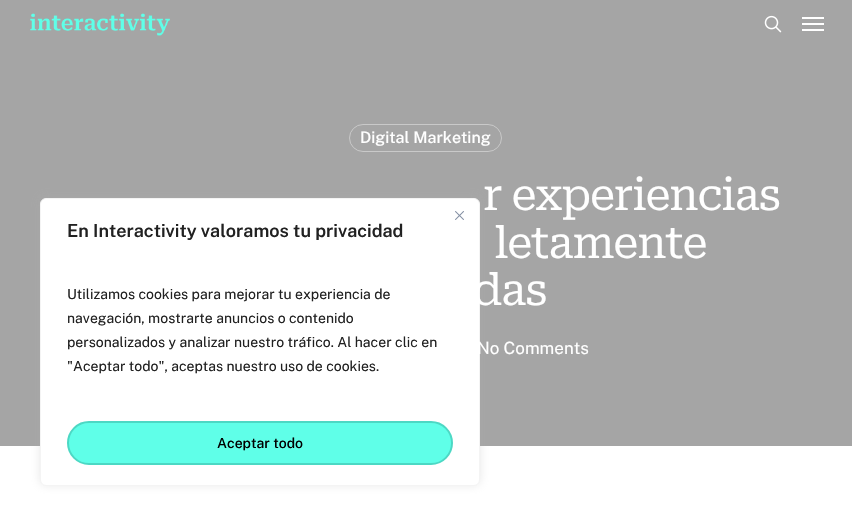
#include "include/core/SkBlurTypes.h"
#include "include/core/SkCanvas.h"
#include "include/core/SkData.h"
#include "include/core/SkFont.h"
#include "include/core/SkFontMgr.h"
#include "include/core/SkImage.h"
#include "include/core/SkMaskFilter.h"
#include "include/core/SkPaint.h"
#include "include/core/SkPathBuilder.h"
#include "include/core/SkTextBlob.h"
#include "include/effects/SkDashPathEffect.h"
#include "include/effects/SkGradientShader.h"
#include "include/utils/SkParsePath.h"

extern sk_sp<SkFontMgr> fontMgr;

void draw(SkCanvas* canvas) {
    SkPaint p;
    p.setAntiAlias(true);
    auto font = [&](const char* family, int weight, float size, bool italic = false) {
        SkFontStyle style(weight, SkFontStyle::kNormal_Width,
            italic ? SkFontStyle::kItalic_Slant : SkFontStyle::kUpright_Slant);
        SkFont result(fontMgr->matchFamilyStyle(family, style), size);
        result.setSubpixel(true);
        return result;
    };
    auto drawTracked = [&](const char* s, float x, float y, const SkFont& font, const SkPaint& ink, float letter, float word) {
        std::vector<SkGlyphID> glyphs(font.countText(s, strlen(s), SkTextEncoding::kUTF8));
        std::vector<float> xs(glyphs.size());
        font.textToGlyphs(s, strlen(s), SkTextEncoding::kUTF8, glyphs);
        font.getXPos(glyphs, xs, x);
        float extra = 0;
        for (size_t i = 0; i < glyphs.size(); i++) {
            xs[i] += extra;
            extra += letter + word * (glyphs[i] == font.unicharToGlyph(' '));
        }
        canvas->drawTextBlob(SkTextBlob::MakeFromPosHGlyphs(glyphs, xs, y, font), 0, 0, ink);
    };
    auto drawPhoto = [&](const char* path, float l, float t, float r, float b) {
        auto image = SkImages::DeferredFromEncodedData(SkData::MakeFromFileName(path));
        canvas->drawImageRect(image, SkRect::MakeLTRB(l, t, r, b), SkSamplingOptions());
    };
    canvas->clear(0xFFFFFFFF);
    p.setColor(0xFFA5A5A5);
    canvas->drawRect(SkRect::MakeLTRB(0, 0, 852, 446), p);
    p.setColor(0x4DACABAB);
    p.setMaskFilter(SkMaskFilter::MakeBlur(kNormal_SkBlurStyle, 5));
    canvas->drawRoundRect(SkRect::MakeLTRB(40, 197, 480, 485), 6, 6, p);
    p.setMaskFilter(nullptr);
    p.setColor(0xFFFFFFFF);
    canvas->drawRoundRect(SkRect::MakeLTRB(40.5f, 198.5f, 479.5f, 485.5f), 5.5f, 5.5f, p);
    p.setStyle(SkPaint::kStroke_Style);
    p.setStrokeWidth(1);
    p.setColor(0xFFF4F4F4);
    canvas->drawRoundRect(SkRect::MakeLTRB(40.5f, 198.5f, 479.5f, 485.5f), 5.5f, 5.5f, p);
    drawPhoto("media/1.png", 455, 211, 464, 220);
    auto font1 = font("Public Sans", 600, 18);
    p.setStyle(SkPaint::kFill_Style);
    p.setColor(0xFF212121);
    canvas->drawString("En Interactivity valoramos tu privacidad", 67, 237, font1, p);
    auto font2 = font("Public Sans", 400, 14);
    {
        const struct { const char* s; float x, y; } items[] = {
            {"Utilizamos cookies para mejorar tu experiencia de", 67, 299},
            {"navegación, mostrarte anuncios o contenido", 67, 323},
            {"personalizados y analizar nuestro tráfico. Al hacer clic en", 67, 347},
            {"\"Aceptar todo\", aceptas nuestro uso de cookies.", 67, 371},
        };
        for (auto [s, x, y] : items) {
            canvas->drawString(s, x, y, font2, p);
        }
    }
    p.setColor(0xFF5FFFE8);
    canvas->drawRoundRect(SkRect::MakeLTRB(68, 422, 452, 464), 21, 21, p);
    p.setStyle(SkPaint::kStroke_Style);
    p.setStrokeWidth(2);
    p.setColor(0xFF4CD8C4);
    canvas->drawRoundRect(SkRect::MakeLTRB(68, 422, 452, 464), 21, 21, p);
    auto font3 = font("Public Sans", 500, 14);
    p.setStyle(SkPaint::kFill_Style);
    p.setColor(0xFF000000);
    canvas->drawString("Aceptar todo", 217, 448, font3, p);
    drawPhoto("media/2.png", 30, 13, 170, 36);
    drawPhoto("media/3.png", 764, 15, 782, 33);
    {
        const struct { float l, t, r, b; SkColor color; } items[] = {
            {802, 17, 824, 19, 0xFFFFFFFF},
            {802, 29, 824, 31, 0xFFFFFFFF},
            {802, 23, 824, 25, 0xFFFFFFFF},
        };
        for (auto [l, t, r, b, color] : items) {
            p.setColor(color);
            canvas->drawRect(SkRect::MakeLTRB(l, t, r, b), p);
        }
    }
    p.setStyle(SkPaint::kStroke_Style);
    p.setStrokeWidth(1);
    p.setColor(0xFFC9C9C9);
    canvas->drawRoundRect(SkRect::MakeLTRB(349.5f, 124.5f, 501.5f, 151.5f), 13.5f, 13.5f, p);
    auto font4 = font("Public Sans", 500, 16);
    p.setStyle(SkPaint::kFill_Style);
    p.setColor(0xFFFFFFFF);
    canvas->drawString("Digital Marketing", 360, 143, font4, p);
    auto font5 = font("Roboto Serif", 400, 43.5f);
    {
        const struct { const char* s; float x, y; } items[] = {
            {"r experiencias", 483, 210},
            {"letamente", 494, 258},
            {"das", 473, 305},
        };
        for (auto [s, x, y] : items) {
            drawTracked(s, x, y, font5, p, -1.25f, 0);
        }
    }
    auto font6 = font("Public Sans", 400, 17);
    canvas->drawString("No Comments", 477, 354, font6, p);
}
